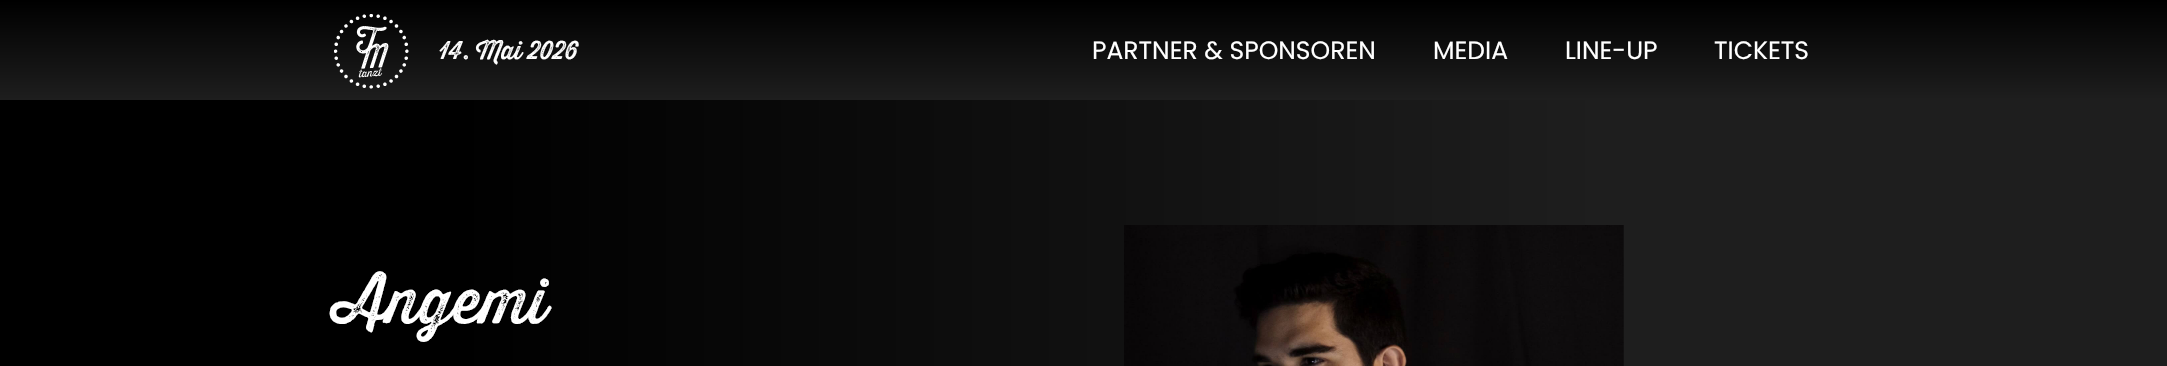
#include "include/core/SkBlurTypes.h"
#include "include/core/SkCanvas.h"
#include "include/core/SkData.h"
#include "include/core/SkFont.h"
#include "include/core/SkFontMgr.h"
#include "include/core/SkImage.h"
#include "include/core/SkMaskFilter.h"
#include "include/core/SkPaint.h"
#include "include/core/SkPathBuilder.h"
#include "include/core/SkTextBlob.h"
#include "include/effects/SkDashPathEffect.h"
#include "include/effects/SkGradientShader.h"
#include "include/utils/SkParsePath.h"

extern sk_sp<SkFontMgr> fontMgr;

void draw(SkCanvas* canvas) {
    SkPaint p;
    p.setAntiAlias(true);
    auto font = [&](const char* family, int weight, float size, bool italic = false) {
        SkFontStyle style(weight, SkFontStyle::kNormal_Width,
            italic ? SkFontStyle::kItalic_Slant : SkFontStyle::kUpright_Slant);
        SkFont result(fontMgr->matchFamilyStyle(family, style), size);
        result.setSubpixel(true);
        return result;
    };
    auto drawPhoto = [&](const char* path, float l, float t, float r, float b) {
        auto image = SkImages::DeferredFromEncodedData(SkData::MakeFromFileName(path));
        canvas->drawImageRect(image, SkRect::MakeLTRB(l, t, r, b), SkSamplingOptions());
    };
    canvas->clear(0xFFFFFFFF);
    {
        const SkColor colors[] = {0xFF000000, 0xFF1E1E1E};
        const float stops[] = {0, 1};
        const SkPoint ends[] = {{1084, 0}, {1084, 100}};
        p.setShader(SkGradientShader::MakeLinear(ends, colors, stops, 2, SkTileMode::kClamp));
        p.setAlpha(255);
    }
    canvas->drawRect(SkRect::MakeLTRB(0, 0, 2167, 100), p);
    drawPhoto("media/1.png", 334, 14, 409, 89);
    auto font1 = font("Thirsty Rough", 400, 25);
    p.setShader(nullptr);
    p.setColor(0xFFFFFFFF);
    canvas->drawString("14. Mai 2026", 439, 59, font1, p);
    auto font2 = font("Poppins", 400, 25);
    {
        const struct { const char* s; float x, y; } items[] = {
            {"PARTNER & SPONSOREN", 1092, 59},
            {"MEDIA", 1433, 59},
            {"LINE-UP", 1565, 59},
            {"TICKETS", 1714, 59},
        };
        for (auto [s, x, y] : items) {
            canvas->drawString(s, x, y, font2, p);
        }
    }
    {
        const SkColor colors[] = {0xFF1E1E1E, 0xFF000000};
        const float stops[] = {0.26f, 0.79f};
        const SkPoint ends[] = {{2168, 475}, {0, 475}};
        p.setShader(SkGradientShader::MakeLinear(ends, colors, stops, 2, SkTileMode::kClamp));
        p.setAlpha(255);
    }
    canvas->drawRect(SkRect::MakeLTRB(0, 100, 2167, 366), p);
    auto font3 = font("Thirsty Rough", 400, 62.5f);
    p.setShader(nullptr);
    p.setColor(0xFFFFFFFF);
    canvas->drawString("Angemi", 334, 323, font3, p);
    drawPhoto("media/2.png", 1124, 225, 1624, 366);
}
